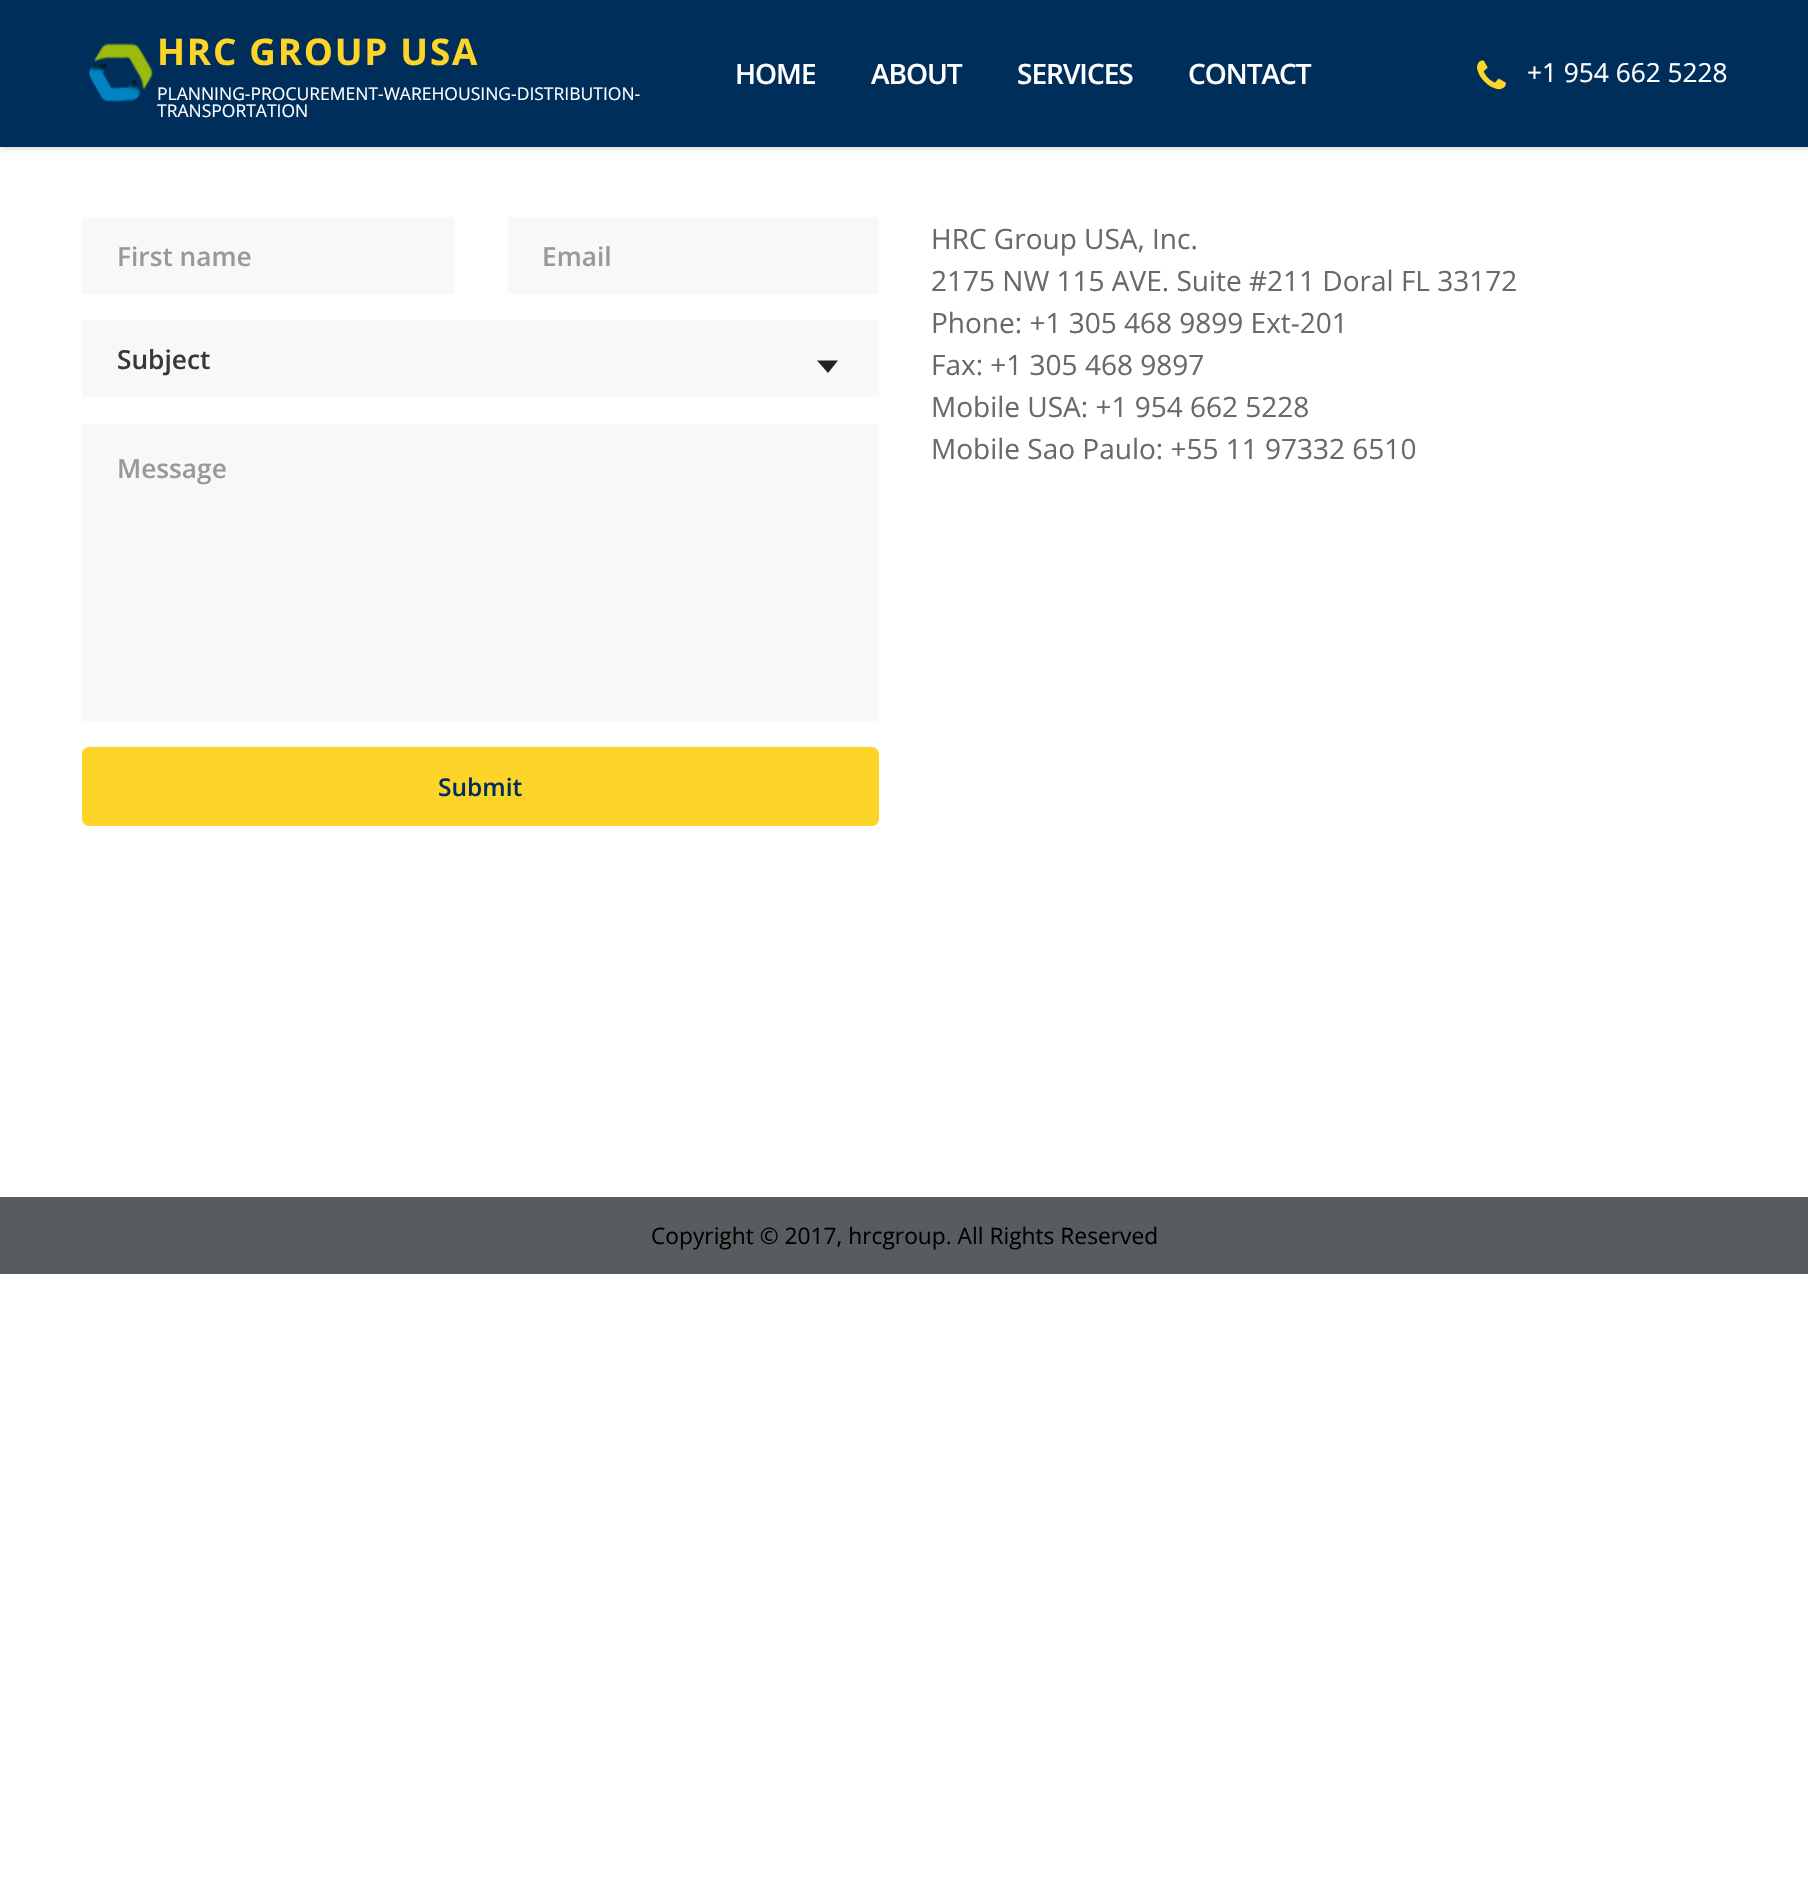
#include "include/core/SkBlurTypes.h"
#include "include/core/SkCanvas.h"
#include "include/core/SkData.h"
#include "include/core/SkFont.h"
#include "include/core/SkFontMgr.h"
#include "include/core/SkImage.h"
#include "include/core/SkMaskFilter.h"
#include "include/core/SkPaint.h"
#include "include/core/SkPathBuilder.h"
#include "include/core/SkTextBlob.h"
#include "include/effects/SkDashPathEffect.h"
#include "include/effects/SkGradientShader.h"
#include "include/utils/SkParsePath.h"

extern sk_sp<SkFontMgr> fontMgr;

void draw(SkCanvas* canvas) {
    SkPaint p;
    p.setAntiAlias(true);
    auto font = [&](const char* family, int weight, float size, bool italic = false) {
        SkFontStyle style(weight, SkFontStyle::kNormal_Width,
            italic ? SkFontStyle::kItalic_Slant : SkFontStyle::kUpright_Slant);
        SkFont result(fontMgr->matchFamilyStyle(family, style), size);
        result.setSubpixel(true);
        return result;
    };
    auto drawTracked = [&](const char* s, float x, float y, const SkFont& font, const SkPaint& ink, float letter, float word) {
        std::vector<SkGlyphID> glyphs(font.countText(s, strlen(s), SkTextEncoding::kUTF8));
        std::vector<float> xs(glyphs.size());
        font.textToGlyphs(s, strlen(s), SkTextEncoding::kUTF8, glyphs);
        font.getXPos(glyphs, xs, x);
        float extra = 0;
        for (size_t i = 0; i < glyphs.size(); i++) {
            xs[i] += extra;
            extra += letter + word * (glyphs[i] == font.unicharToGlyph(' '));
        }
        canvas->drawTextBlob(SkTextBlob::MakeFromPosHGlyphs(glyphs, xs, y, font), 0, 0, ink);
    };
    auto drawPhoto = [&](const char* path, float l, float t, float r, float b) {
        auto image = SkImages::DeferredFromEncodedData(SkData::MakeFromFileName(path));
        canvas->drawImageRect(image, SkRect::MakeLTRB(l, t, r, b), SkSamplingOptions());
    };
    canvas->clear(0xFFFFFFFF);
    p.setColor(0x26000000);
    p.setMaskFilter(SkMaskFilter::MakeBlur(kNormal_SkBlurStyle, 2.5f));
    canvas->drawRect(SkRect::MakeLTRB(0, 2, 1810, 149), p);
    p.setMaskFilter(nullptr);
    p.setColor(0xFF002E5B);
    canvas->drawRect(SkRect::MakeLTRB(0, 0, 1808, 147), p);
    drawPhoto("media/1.png", 89, 43, 153, 102);
    auto font1 = font("Open Sans", 700, 36.75f);
    p.setColor(0xFFFDD428);
    drawTracked("HRC GROUP USA", 157, 65, font1, p, 1.75f, 0);
    auto font2 = font("Open Sans", 400, 17.5f);
    p.setColor(0xFFFFFFFF);
    canvas->drawString("PLANNING-PROCUREMENT-WAREHOUSING-DISTRIBUTION-", 157, 100, font2, p);
    canvas->drawString("TRANSPORTATION", 157, 117, font2, p);
    auto font3 = font("Open Sans", 600, 28);
    {
        const struct { const char* s; float x, y; } items[] = {
            {"HOME", 735, 84},
            {"ABOUT", 871, 84},
            {"SERVICES", 1017, 84},
            {"CONTACT", 1188, 84},
        };
        for (auto [s, x, y] : items) {
            drawTracked(s, x, y, font3, p, -1, 0);
        }
    }
    drawPhoto("media/2.png", 1477, 60, 1506, 90);
    auto font4 = font("Open Sans", 400, 26.25f);
    canvas->drawString("+1 954 662 5228", 1527, 82, font4, p);
    p.setColor(0xFFF8F8F8);
    canvas->drawRect(SkRect::MakeLTRB(82, 217, 455, 294), p);
    auto font5 = font("Open Sans", 600, 26.25f);
    p.setColor(0xFF999999);
    canvas->drawString("First name", 117, 266, font5, p);
    p.setColor(0xFFF8F8F8);
    canvas->drawRect(SkRect::MakeLTRB(508, 217, 879, 294), p);
    p.setColor(0xFF999999);
    canvas->drawString("Email", 542, 266, font5, p);
    p.setColor(0xFFF8F8F8);
    canvas->drawRect(SkRect::MakeLTRB(82, 320, 879, 397), p);
    p.setColor(0xFF383838);
    canvas->drawString("Subject", 117, 369, font5, p);
    p.setColor(0xFF232323);
    canvas->drawPath(SkPathBuilder().moveTo(817, 360.5f).lineTo(838, 360.5f).lineTo(828, 373).close().detach(), p);
    p.setColor(0xFFF8F8F8);
    canvas->drawRect(SkRect::MakeLTRB(82, 424, 879, 721), p);
    p.setColor(0xFF999999);
    canvas->drawString("Message", 117, 478, font5, p);
    p.setColor(0xFFFDD428);
    canvas->drawRoundRect(SkRect::MakeLTRB(84.5f, 749.5f, 876.5f, 823.5f), 4.5f, 4.5f, p);
    p.setStyle(SkPaint::kStroke_Style);
    p.setStrokeWidth(5);
    canvas->drawRoundRect(SkRect::MakeLTRB(84.5f, 749.5f, 876.5f, 823.5f), 4.5f, 4.5f, p);
    auto font6 = font("Open Sans", 600, 24.5f);
    p.setStyle(SkPaint::kFill_Style);
    p.setColor(0xFF002E5B);
    canvas->drawString("Submit", 438, 796, font6, p);
    auto font7 = font("Open Sans", 400, 28);
    p.setColor(0xFF696969);
    {
        const struct { const char* s; float x, y; } items[] = {
            {"HRC Group USA, Inc.", 931, 249},
            {"2175 NW 115 AVE. Suite #211 Doral FL 33172", 931, 291},
            {"Phone: +1 305 468 9899 Ext-201", 931, 333},
            {"Fax: +1 305 468 9897", 931, 375},
            {"Mobile USA: +1 954 662 5228", 931, 417},
            {"Mobile Sao Paulo: +55 11 97332 6510", 931, 459},
        };
        for (auto [s, x, y] : items) {
            canvas->drawString(s, x, y, font7, p);
        }
    }
    p.setColor(0xFF585C5F);
    canvas->drawRect(SkRect::MakeLTRB(0, 1197, 1808, 1274), p);
    auto font8 = font("Open Sans", 400, 22.75f);
    p.setColor(0xFF000000);
    canvas->drawString("Copyright © 2017, hrcgroup. All Rights Reserved", 651, 1244, font8, p);
}
